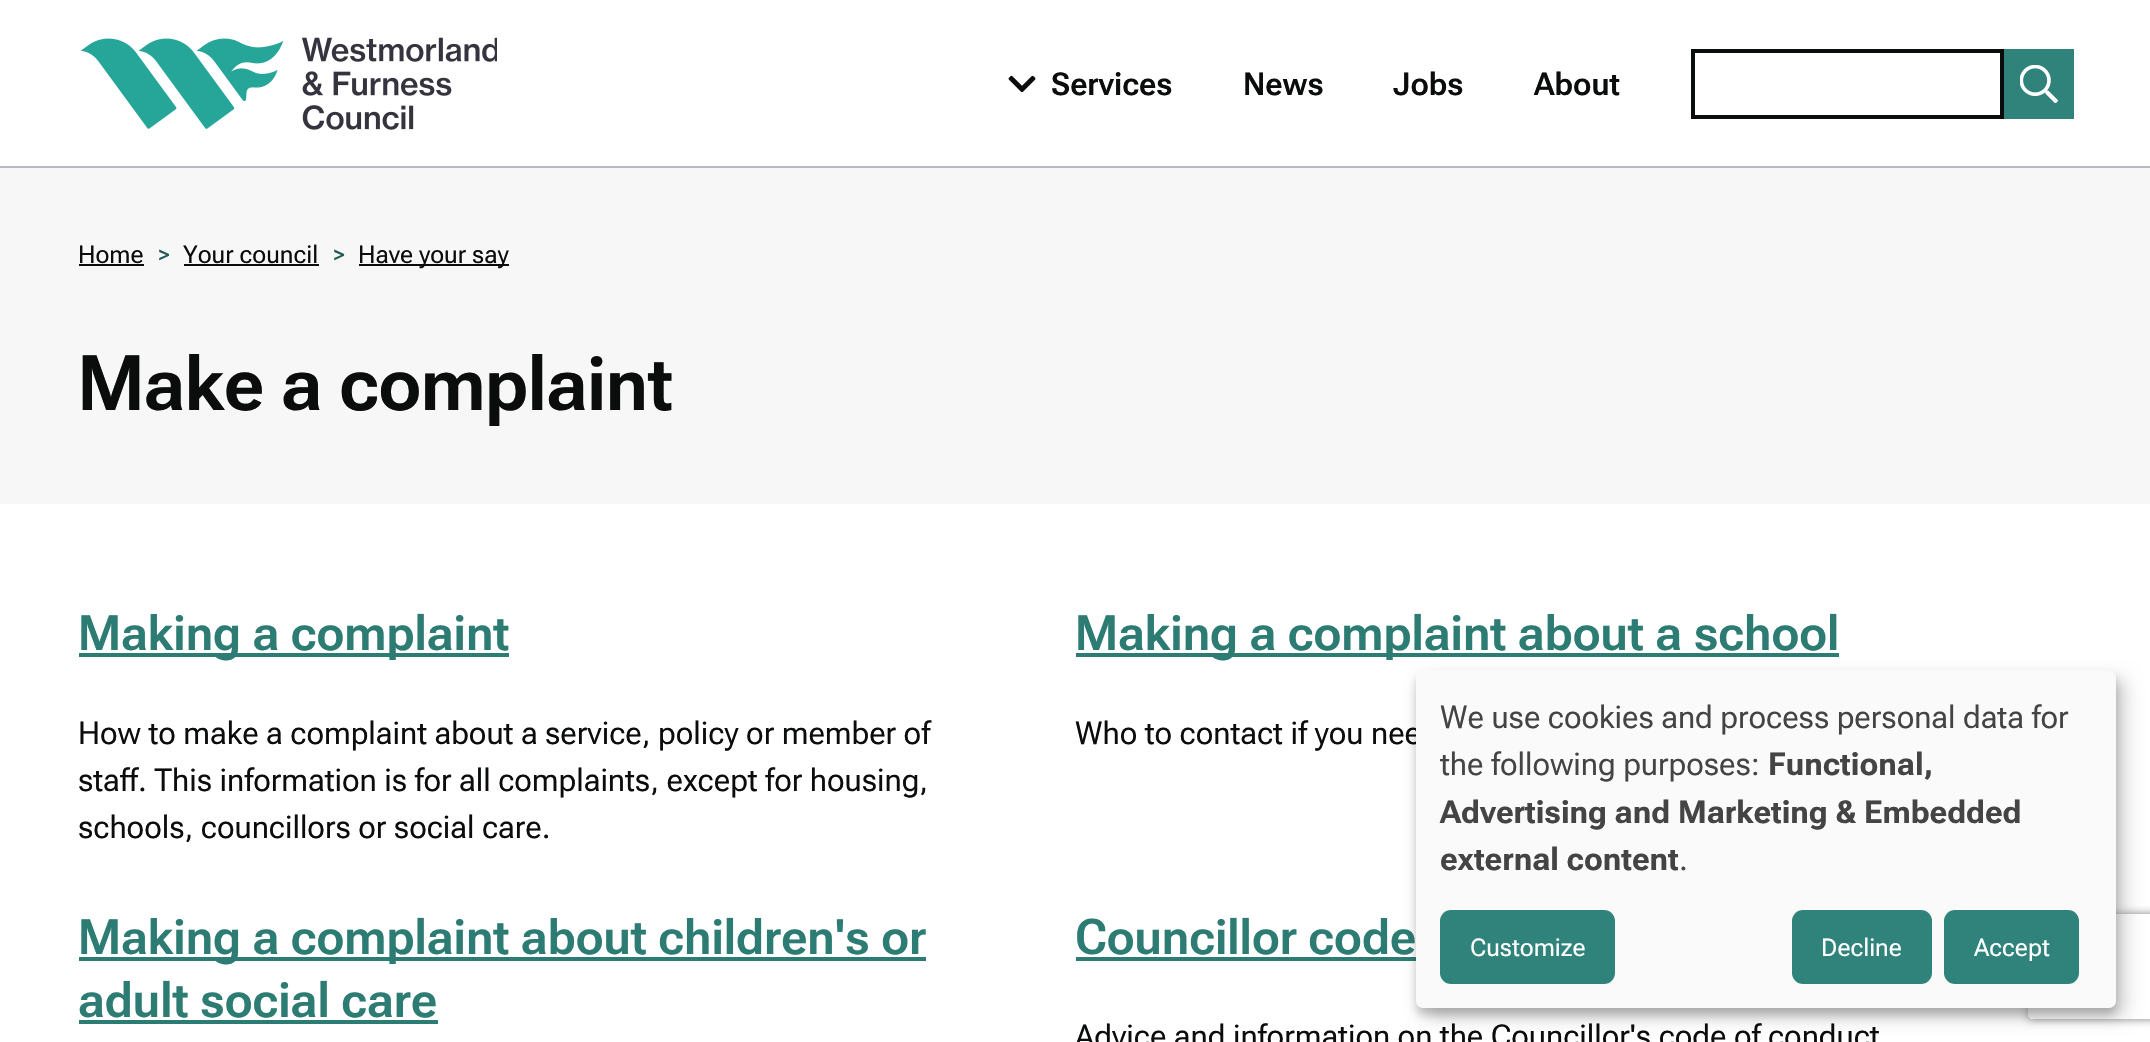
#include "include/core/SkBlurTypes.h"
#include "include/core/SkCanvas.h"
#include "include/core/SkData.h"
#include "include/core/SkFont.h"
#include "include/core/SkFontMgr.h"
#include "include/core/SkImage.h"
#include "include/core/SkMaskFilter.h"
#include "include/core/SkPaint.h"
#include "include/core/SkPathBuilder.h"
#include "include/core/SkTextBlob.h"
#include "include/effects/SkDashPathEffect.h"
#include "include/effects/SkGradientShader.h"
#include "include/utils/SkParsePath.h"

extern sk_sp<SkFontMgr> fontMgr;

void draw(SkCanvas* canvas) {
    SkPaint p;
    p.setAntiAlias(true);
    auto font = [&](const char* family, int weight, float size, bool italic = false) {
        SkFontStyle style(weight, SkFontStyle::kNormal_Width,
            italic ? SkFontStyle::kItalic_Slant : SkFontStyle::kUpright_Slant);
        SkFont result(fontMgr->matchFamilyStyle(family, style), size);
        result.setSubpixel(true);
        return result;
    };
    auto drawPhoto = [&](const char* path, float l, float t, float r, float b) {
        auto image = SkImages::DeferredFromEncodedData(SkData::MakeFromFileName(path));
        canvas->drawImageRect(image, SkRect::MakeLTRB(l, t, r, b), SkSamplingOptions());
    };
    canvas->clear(0xFFFFFFFF);
    p.setColor(0xFFB8B8C2);
    canvas->drawRect(SkRect::MakeLTRB(0, 166, 2150, 168), p);
    drawPhoto("media/1.png", 80, 37, 497, 130);
    drawPhoto("media/2.png", 1008, 75, 1036, 93);
    auto font1 = font("Roboto Flex", 600, 31.5f);
    p.setColor(0xFF0B0C0C);
    {
        const struct { const char* s; float x, y; } items[] = {
            {"Services", 1051, 95},
            {"News", 1243, 95},
            {"Jobs", 1393, 95},
            {"About", 1534, 95},
        };
        for (auto [s, x, y] : items) {
            canvas->drawString(s, x, y, font1, p);
        }
    }
    p.setStyle(SkPaint::kStroke_Style);
    p.setStrokeWidth(4);
    canvas->drawRect(SkRect::MakeLTRB(1693, 51, 2002, 117), p);
    p.setStyle(SkPaint::kFill_Style);
    p.setColor(0xFF2F837B);
    canvas->drawRect(SkRect::MakeLTRB(2004, 49, 2074, 119), p);
    drawPhoto("media/3.png", 2020, 65, 2058, 103);
    p.setColor(0xFFF7F7F8);
    canvas->drawRect(SkRect::MakeLTRB(0, 168, 2150, 504), p);
    auto font2 = font("Roboto Flex", 400, 24.5f);
    p.setColor(0xFF0B0C0C);
    canvas->drawString("Home", 78, 263, font2, p);
    canvas->drawRect(SkRect::MakeLTRB(79, 264, 144, 266), p);
    p.setColor(0xFF205B56);
    canvas->drawString(">", 158, 263, font2, p);
    p.setColor(0xFF0B0C0C);
    canvas->drawString("Your council", 183, 263, font2, p);
    canvas->drawRect(SkRect::MakeLTRB(184, 264, 319, 266), p);
    p.setColor(0xFF205B56);
    canvas->drawString(">", 333, 263, font2, p);
    p.setColor(0xFF0B0C0C);
    canvas->drawRect(SkRect::MakeLTRB(359, 264, 509, 266), p);
    canvas->drawString("Have your say", 358, 263, font2, p);
    auto font3 = font("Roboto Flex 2", 600, 77);
    canvas->drawString("Make a complaint", 78, 410, font3, p);
    p.setColor(0xFF2D7C74);
    canvas->drawRect(SkRect::MakeLTRB(79, 653, 509, 657), p);
    auto font4 = font("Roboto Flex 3", 600, 49);
    canvas->drawString("Making a complaint", 78, 650, font4, p);
    auto font5 = font("Roboto Flex 2", 400, 31.5f);
    p.setColor(0xFF0B0C0C);
    {
        const struct { const char* s; float x, y; } items[] = {
            {"How to make a complaint about a service, policy or member of", 78, 744},
            {"staff. This information is for all complaints, except for housing,", 78, 791},
            {"schools, councillors or social care.", 78, 838},
        };
        for (auto [s, x, y] : items) {
            canvas->drawString(s, x, y, font5, p);
        }
    }
    p.setColor(0xFF2D7C74);
    canvas->drawRect(SkRect::MakeLTRB(1076, 653, 1839, 657), p);
    canvas->drawString("Making a complaint about a school", 1075, 650, font4, p);
    p.setColor(0xFF0B0C0C);
    canvas->drawString("Who to contact if you nee", 1075, 744, font5, p);
    p.setColor(0xFF2D7C74);
    canvas->drawRect(SkRect::MakeLTRB(79, 957, 926, 961), p);
    canvas->drawString("Making a complaint about children's or", 78, 954, font4, p);
    canvas->drawString("adult social care", 78, 1017, font4, p);
    canvas->drawRect(SkRect::MakeLTRB(79, 1020, 438, 1024), p);
    canvas->drawString("Councillor code", 1075, 954, font4, p);
    canvas->drawRect(SkRect::MakeLTRB(1076, 957, 1416, 961), p);
    p.setColor(0xFF0B0C0C);
    canvas->drawString("Advice and information on the Councillor's code of conduct", 1075, 1047, font5, p);
    p.setColor(0x30000000);
    p.setMaskFilter(SkMaskFilter::MakeBlur(kNormal_SkBlurStyle, 9));
    canvas->drawRoundRect(SkRect::MakeLTRB(1425, 679, 2125, 1017), 7, 7, p);
    p.setMaskFilter(nullptr);
    p.setColor(0x33000000);
    p.setMaskFilter(SkMaskFilter::MakeBlur(kNormal_SkBlurStyle, 5));
    canvas->drawRoundRect(SkRect::MakeLTRB(1416, 677, 2116, 1015), 7, 7, p);
    p.setMaskFilter(nullptr);
    canvas->save();
    canvas->clipPath(SkPathBuilder(SkPathFillType::kEvenOdd).moveTo(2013, 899).lineTo(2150, 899).lineTo(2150, 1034).lineTo(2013, 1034).close().moveTo(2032, 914).lineTo(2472, 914).cubicTo(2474, 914, 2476, 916, 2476, 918).lineTo(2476, 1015).cubicTo(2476, 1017, 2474, 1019, 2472, 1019).lineTo(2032, 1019).cubicTo(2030, 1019, 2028, 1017, 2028, 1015).lineTo(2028, 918).cubicTo(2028, 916, 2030, 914, 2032, 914).close().detach(), true);
    p.setColor(0xFF808080);
    p.setMaskFilter(SkMaskFilter::MakeBlur(kNormal_SkBlurStyle, 4.5f));
    canvas->drawRoundRect(SkRect::MakeLTRB(2028, 914, 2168, 1019), 4, 4, p);
    p.setMaskFilter(nullptr);
    canvas->restore();
    p.setColor(0xFFFAFAFA);
    canvas->drawRoundRect(SkRect::MakeLTRB(1416, 670, 2116, 1008), 7, 7, p);
    p.setColor(0xFF444444);
    canvas->drawString("We use cookies and process personal data for", 1440, 728, font5, p);
    canvas->drawString("the following purposes:", 1440, 775, font5, p);
    auto font6 = font("Roboto Flex", 700, 31.5f);
    {
        const struct { const char* s; float x, y; } items[] = {
            {"Functional,", 1768, 775},
            {"Advertising and Marketing & Embedded", 1440, 823},
            {"external content", 1440, 870},
        };
        for (auto [s, x, y] : items) {
            canvas->drawString(s, x, y, font6, p);
        }
    }
    canvas->drawString(".", 1679, 870, font5, p);
    p.setColor(0xFF2F837B);
    canvas->drawRoundRect(SkRect::MakeLTRB(1440, 910, 1615, 984), 11, 11, p);
    p.setColor(0xFFFFFFFF);
    canvas->drawString("Customize", 1470, 956, font2, p);
    p.setColor(0xFF2F837B);
    canvas->drawRoundRect(SkRect::MakeLTRB(1792, 910, 1932, 984), 11, 11, p);
    p.setColor(0xFFFFFFFF);
    canvas->drawString("Decline", 1821, 956, font2, p);
    p.setColor(0xFF2F837B);
    canvas->drawRoundRect(SkRect::MakeLTRB(1944, 910, 2079, 984), 11, 11, p);
    p.setColor(0xFFFFFFFF);
    canvas->drawString("Accept", 1974, 956, font2, p);
}
